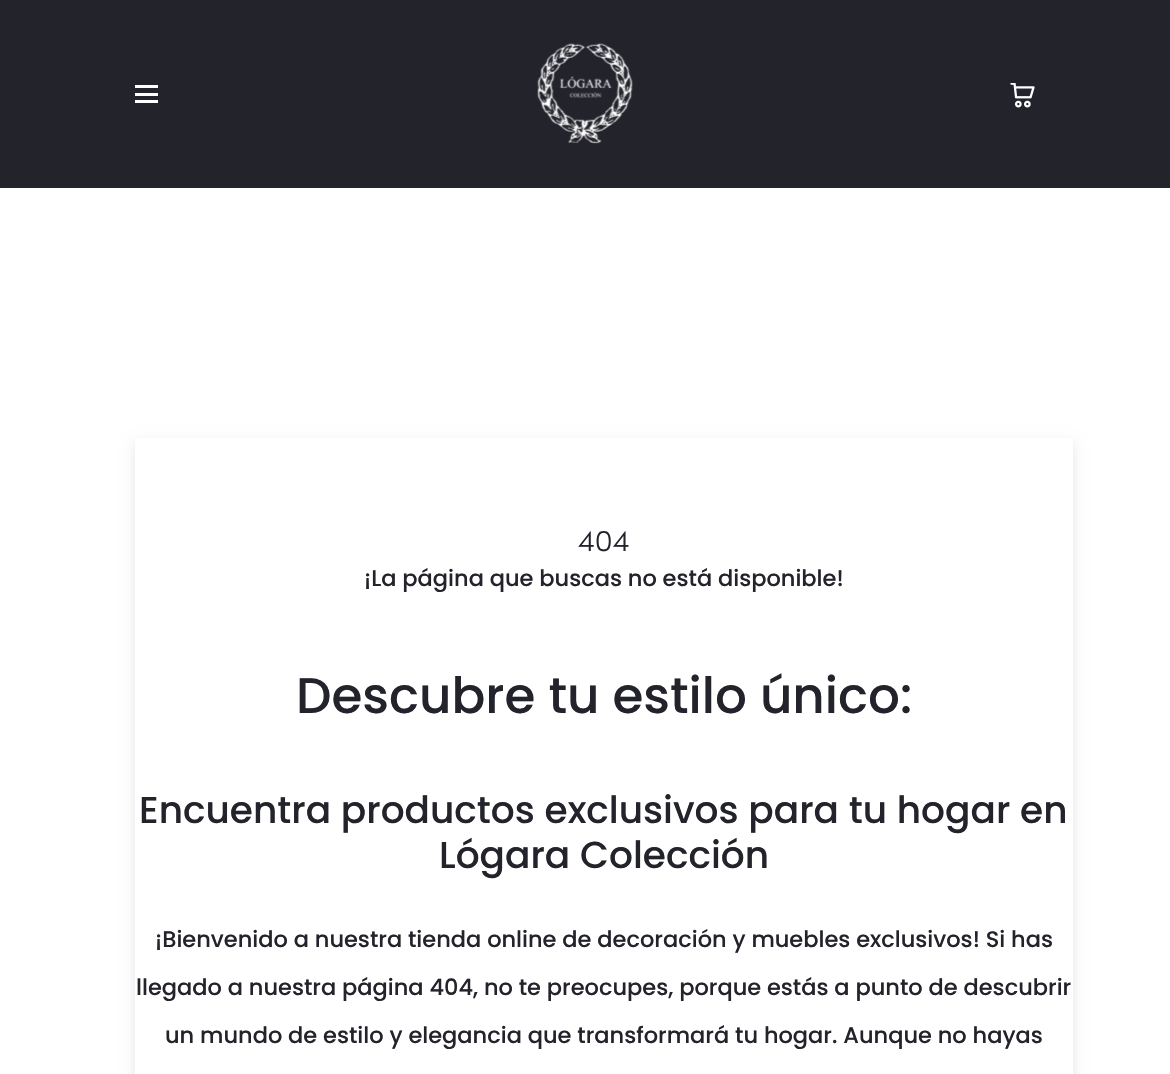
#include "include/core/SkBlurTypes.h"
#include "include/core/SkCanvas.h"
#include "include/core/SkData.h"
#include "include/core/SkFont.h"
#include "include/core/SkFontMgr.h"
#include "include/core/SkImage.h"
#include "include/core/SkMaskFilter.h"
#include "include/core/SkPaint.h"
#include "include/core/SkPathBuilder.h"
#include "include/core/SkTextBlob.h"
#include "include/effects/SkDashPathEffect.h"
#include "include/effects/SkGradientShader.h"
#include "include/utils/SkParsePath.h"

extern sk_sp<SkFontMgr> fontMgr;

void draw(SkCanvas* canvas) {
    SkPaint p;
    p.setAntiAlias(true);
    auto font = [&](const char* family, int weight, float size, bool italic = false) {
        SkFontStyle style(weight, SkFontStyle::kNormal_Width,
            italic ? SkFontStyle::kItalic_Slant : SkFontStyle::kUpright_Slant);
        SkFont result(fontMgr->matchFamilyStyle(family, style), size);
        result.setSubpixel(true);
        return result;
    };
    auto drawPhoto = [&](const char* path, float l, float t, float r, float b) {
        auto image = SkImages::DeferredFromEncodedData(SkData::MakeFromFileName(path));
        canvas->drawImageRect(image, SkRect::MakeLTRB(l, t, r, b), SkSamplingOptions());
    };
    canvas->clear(0xFFFFFFFF);
    {
        const struct { float l, t, r, b; SkColor color; } items[] = {
            {0, 0, 1170, 188, 0xFF23232C},
            {135, 93, 158, 96, 0xFFFFFFFF},
            {135, 85, 158, 88, 0xFFFFFFFF},
            {135, 100, 158, 103, 0xFFFFFFFF},
        };
        for (auto [l, t, r, b, color] : items) {
            p.setColor(color);
            canvas->drawRect(SkRect::MakeLTRB(l, t, r, b), p);
        }
    }
    drawPhoto("media/1.png", 537, 43, 633, 144);
    drawPhoto("media/2.png", 1010, 83, 1035, 108);
    canvas->save();
    canvas->clipPath(SkPathBuilder(SkPathFillType::kEvenOdd).moveTo(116, 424).lineTo(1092, 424).lineTo(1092, 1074).lineTo(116, 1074).close().moveTo(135, 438).lineTo(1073, 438).lineTo(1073, 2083).lineTo(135, 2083).close().detach(), true);
    p.setColor(0x1A030303);
    p.setMaskFilter(SkMaskFilter::MakeBlur(kNormal_SkBlurStyle, 6));
    canvas->drawRect(SkRect::MakeLTRB(135, 443, 1073, 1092), p);
    p.setMaskFilter(nullptr);
    canvas->restore();
    p.setColor(0xE6FFFFFF);
    canvas->drawRect(SkRect::MakeLTRB(1072, 442, 1073, 1074), p);
    auto font1 = font("Sofia", 300, 30);
    p.setColor(0xFF23232C);
    canvas->drawString("404", 578, 551, font1, p);
    auto font2 = font("Poppins", 500, 22.5f);
    canvas->drawString("¡La página que buscas no está disponible!", 364, 586, font2, p);
    auto font3 = font("Poppins", 500, 50);
    canvas->drawString("Descubre tu estilo único:", 296, 713, font3, p);
    auto font4 = font("Poppins", 500, 37.5f);
    canvas->drawString("Encuentra productos exclusivos para tu hogar en", 139, 823, font4, p);
    canvas->drawString("Lógara Colección", 439, 868, font4, p);
    {
        const struct { const char* s; float x, y; } items[] = {
            {"¡Bienvenido a nuestra tienda online de decoración y muebles exclusivos! Si has", 155, 947},
            {"llegado a nuestra página 404, no te preocupes, porque estás a punto de descubrir", 136, 995},
            {"un mundo de estilo y elegancia que transformará tu hogar. Aunque no hayas", 165, 1043},
        };
        for (auto [s, x, y] : items) {
            canvas->drawString(s, x, y, font2, p);
        }
    }
}
